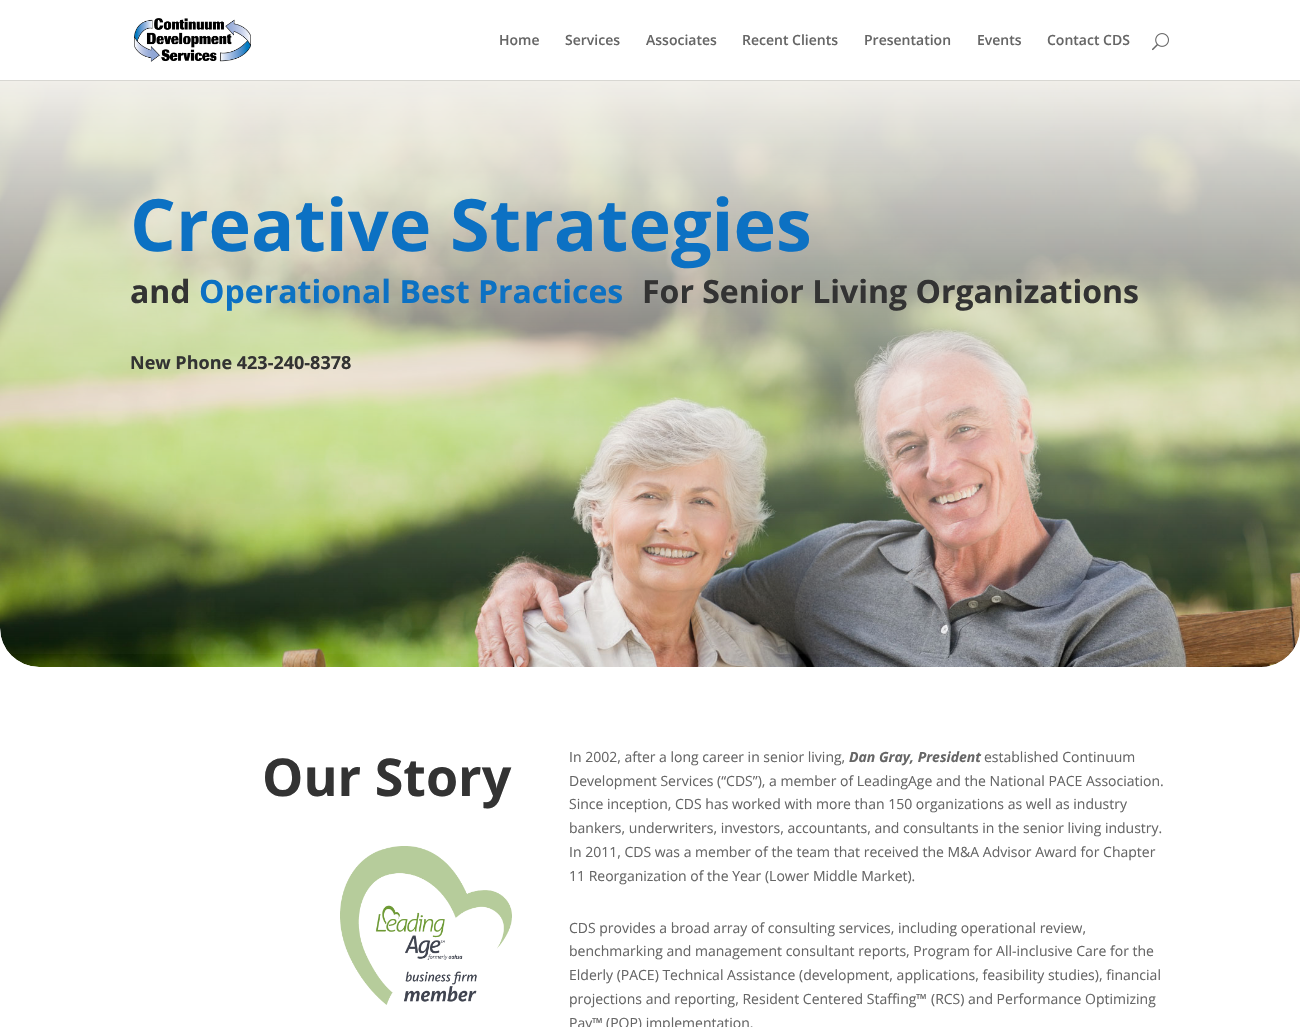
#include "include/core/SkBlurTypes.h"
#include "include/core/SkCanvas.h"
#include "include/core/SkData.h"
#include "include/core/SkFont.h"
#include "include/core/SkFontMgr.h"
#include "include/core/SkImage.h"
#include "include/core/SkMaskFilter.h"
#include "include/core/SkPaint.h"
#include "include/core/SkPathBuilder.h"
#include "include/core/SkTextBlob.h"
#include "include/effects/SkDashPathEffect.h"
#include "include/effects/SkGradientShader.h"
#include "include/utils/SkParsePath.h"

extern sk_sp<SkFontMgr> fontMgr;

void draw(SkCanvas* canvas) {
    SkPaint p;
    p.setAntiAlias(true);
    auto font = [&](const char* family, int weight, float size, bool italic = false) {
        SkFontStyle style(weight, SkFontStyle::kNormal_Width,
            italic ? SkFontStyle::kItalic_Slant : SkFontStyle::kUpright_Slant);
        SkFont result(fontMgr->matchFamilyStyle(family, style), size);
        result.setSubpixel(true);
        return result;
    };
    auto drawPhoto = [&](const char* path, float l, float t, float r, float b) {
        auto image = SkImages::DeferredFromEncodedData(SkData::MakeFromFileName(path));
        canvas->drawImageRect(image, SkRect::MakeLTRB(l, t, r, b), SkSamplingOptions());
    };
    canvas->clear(0xFFFFFFFF);
    p.setColor(0xFFD8D7D2);
    canvas->drawRect(SkRect::MakeLTRB(0, 80, 1300, 81), p);
    drawPhoto("media/1.png", 134, 18, 251, 62);
    auto font1 = font("Open Sans", 600, 14);
    p.setColor(0xFF666666);
    {
        const struct { const char* s; float x, y; } items[] = {
            {"Home", 499, 45},
            {"Services", 565, 45},
            {"Associates", 646, 45},
            {"Recent Clients", 742, 45},
            {"Presentation", 864, 45},
            {"Events", 977, 45},
            {"Contact CDS", 1047, 45},
        };
        for (auto [s, x, y] : items) {
            canvas->drawString(s, x, y, font1, p);
        }
    }
    drawPhoto("media/2.png", 1152, 33, 1169, 51);
    drawPhoto("media/3.png", 0, 81, 1300, 667);
    {
        const SkColor colors[] = {0xFFF2F0EB, 0x00F2F0EB};
        const float stops[] = {0, 1};
        const SkPoint ends[] = {{650, 75}, {650, 667}};
        p.setShader(SkGradientShader::MakeLinear(ends, colors, stops, 2, SkTileMode::kClamp));
        p.setAlpha(255);
    }
    canvas->drawRect(SkRect::MakeLTRB(0, 81, 1300, 654), p);
    auto font2 = font("Open Sans", 700, 72);
    p.setShader(nullptr);
    p.setColor(0xFF0C71C3);
    canvas->drawString("Creative Strategies", 130, 251, font2, p);
    auto font3 = font("Open Sans", 700, 32);
    p.setColor(0xFF333333);
    canvas->drawString("and", 130, 303, font3, p);
    p.setColor(0xFF0C71C3);
    canvas->drawString("Operational Best Practices", 199, 303, font3, p);
    p.setColor(0xFF333333);
    canvas->drawString("For Senior Living Organizations", 642, 303, font3, p);
    auto font4 = font("Open Sans", 700, 18);
    canvas->drawString("New Phone 423-240-8378", 130, 369, font4, p);
    auto font5 = font("Open Sans", 700, 52);
    canvas->drawString("Our Story", 262, 796, font5, p);
    drawPhoto("media/4.png", 340, 846, 512, 1005);
    auto font6 = font("Open Sans", 400, 14);
    p.setColor(0xFF666666);
    canvas->drawString("In 2002, after a long career in senior living,", 569, 762, font6, p);
    auto font7 = font("Open Sans", 700, 14, true);
    canvas->drawString("Dan Gray, President", 849, 762, font7, p);
    {
        const struct { const char* s; float x, y; } items[] = {
            {"established Continuum", 984, 762},
            {"Development Services (“CDS”), a member of LeadingAge and the National PACE Association.", 569, 786},
            {"Since inception, CDS has worked with more than 150 organizations as well as industry", 569, 809},
            {"bankers, underwriters, investors, accountants, and consultants in the senior living industry.", 569, 833},
            {"In 2011, CDS was a member of the team that received the M&A Advisor Award for Chapter", 569, 857},
            {"11 Reorganization of the Year (Lower Middle Market).", 569, 881},
            {"CDS provides a broad array of consulting services, including operational review,", 569, 933},
            {"benchmarking and management consultant reports, Program for All-inclusive Care for the", 569, 956},
            {"Elderly (PACE) Technical Assistance (development, applications, feasibility studies), financial", 569, 980},
            {"projections and reporting, Resident Centered Staffing", 569, 1004},
        };
        for (auto [s, x, y] : items) {
            canvas->drawString(s, x, y, font6, p);
        }
    }
    auto font8 = font("Open Sans", 400, 14, true);
    canvas->drawString("™", 916, 1004, font8, p);
    canvas->drawString("(RCS) and Performance Optimizing", 931, 1004, font6, p);
    canvas->drawString("Pay", 569, 1028, font6, p);
    canvas->drawString("™", 592, 1028, font8, p);
    canvas->drawString("(POP) implementation.", 606, 1028, font6, p);
}
